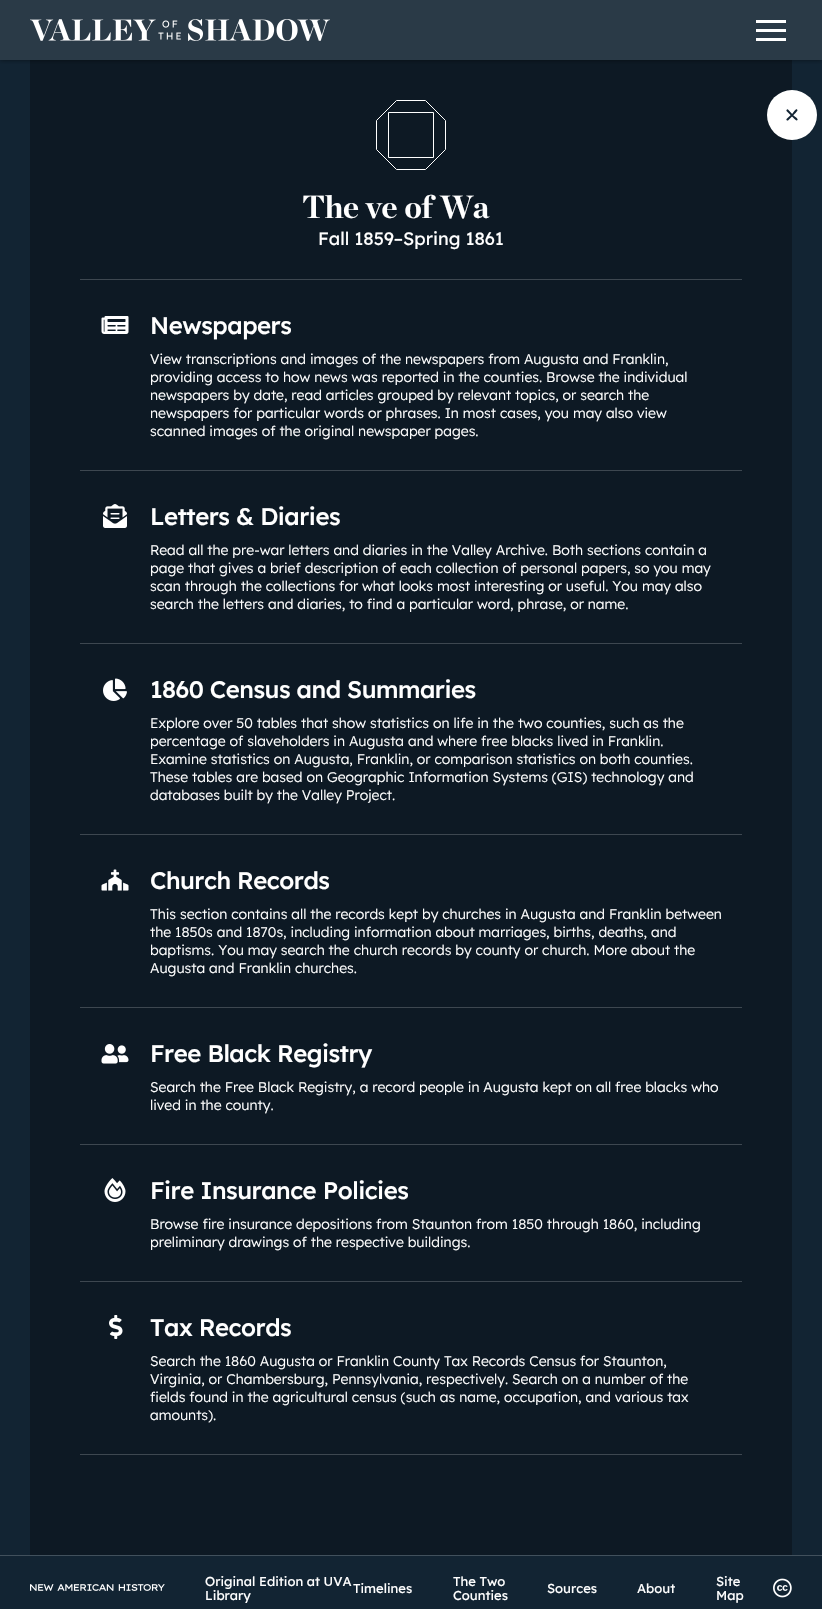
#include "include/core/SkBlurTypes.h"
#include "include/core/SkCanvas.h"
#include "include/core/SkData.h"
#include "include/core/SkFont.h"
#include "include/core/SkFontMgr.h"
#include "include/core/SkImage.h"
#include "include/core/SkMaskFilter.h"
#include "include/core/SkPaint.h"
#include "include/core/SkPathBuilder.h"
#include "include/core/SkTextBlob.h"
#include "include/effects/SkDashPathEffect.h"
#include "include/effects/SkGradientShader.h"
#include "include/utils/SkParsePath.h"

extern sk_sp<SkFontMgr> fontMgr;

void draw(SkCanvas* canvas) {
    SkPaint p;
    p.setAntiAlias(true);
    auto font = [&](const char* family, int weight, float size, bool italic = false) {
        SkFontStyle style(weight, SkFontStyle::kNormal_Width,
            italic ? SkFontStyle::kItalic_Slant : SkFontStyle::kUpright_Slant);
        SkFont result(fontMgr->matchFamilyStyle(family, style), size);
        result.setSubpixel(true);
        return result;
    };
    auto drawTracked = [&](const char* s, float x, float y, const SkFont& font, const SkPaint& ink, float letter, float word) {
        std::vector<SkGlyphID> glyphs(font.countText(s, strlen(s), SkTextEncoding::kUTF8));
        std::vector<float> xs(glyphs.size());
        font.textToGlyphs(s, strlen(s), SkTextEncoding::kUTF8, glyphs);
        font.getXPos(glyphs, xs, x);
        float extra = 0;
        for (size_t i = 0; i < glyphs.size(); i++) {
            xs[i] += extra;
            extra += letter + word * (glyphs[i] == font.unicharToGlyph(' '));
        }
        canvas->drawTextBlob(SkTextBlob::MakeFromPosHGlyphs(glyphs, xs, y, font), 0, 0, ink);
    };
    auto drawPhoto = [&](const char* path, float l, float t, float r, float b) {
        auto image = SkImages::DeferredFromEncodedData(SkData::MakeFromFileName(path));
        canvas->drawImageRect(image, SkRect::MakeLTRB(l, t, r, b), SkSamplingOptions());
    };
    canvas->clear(0xFF122433);
    p.setColor(0xFF2A3A47);
    canvas->drawRect(SkRect::MakeLTRB(0, 0, 822, 60), p);
    p.setColor(0xFF0D1924);
    canvas->drawRect(SkRect::MakeLTRB(30, 60, 792, 1555), p);
    canvas->save();
    canvas->clipRect(SkRect::MakeLTRB(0, 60, 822, 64));
    p.setColor(0x80000000);
    p.setMaskFilter(SkMaskFilter::MakeBlur(kNormal_SkBlurStyle, 2.5f));
    canvas->drawRect(SkRect::MakeLTRB(0, 0, 822, 60), p);
    p.setMaskFilter(nullptr);
    canvas->restore();
    drawPhoto("media/1.png", 30, 19, 330, 41);
    {
        const struct { float l, t, r, b; SkColor color; } items[] = {
            {756, 20, 786, 23, 0xFFFFFFFF},
            {756, 29, 786, 32, 0xFFFFFFFF},
            {756, 38, 786, 41, 0xFFFFFFFF},
        };
        for (auto [l, t, r, b, color] : items) {
            p.setColor(color);
            canvas->drawRect(SkRect::MakeLTRB(l, t, r, b), p);
        }
    }
    canvas->drawCircle(792, 115, 25, p);
    p.setColor(0xFF122433);
    canvas->drawPath(SkPathBuilder().moveTo(788, 109.5f).lineTo(794, 116).cubicTo(795, 116.5f, 798.5f, 119, 797.5f, 120).cubicTo(796.5f, 121.5f, 795, 119, 794.5f, 119).lineTo(786.5f, 111).cubicTo(786, 110, 787.5f, 109, 788, 109.5f).close().detach(), p);
    canvas->drawPath(SkPathBuilder().moveTo(786.5f, 119).lineTo(793, 113).cubicTo(793.5f, 112, 796, 108.5f, 797, 109.5f).cubicTo(798.5f, 110.5f, 796, 112, 796, 112.5f).lineTo(788, 120.5f).cubicTo(787, 121, 786, 119.5f, 786.5f, 119).close().detach(), p);
    p.setStyle(SkPaint::kStroke_Style);
    p.setStrokeWidth(1);
    p.setColor(0xFFFFFFFF);
    canvas->drawPath(SkPathBuilder().moveTo(425.5f, 100.5f).lineTo(445.5f, 120.5f).lineTo(445.5f, 149.5f).lineTo(425.5f, 169.5f).lineTo(396.5f, 169.5f).lineTo(376.5f, 149.5f).lineTo(376.5f, 120.5f).lineTo(396.5f, 100.5f).close().detach(), p);
    canvas->drawPath(SkPathBuilder().moveTo(388.5f, 112.5f).lineTo(433.5f, 112.5f).lineTo(433.5f, 157.5f).lineTo(388.5f, 157.5f).close().detach(), p);
    auto font1 = font("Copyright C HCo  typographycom", 400, 20);
    p.setStyle(SkPaint::kFill_Style);
    canvas->drawString("I", 407, 142, font1, p);
    auto font2 = font("Copyright C HCo  typographycom", 400, 32);
    drawTracked("The Eve of War", 302, 218, font2, p, -0.5f, 2);
    auto font3 = font("Lexend", 400, 18);
    canvas->drawString("Fall 1859–Spring 1861", 318, 245, font3, p);
    p.setColor(0xFF3D4750);
    canvas->drawRect(SkRect::MakeLTRB(80, 279, 742, 280), p);
    drawPhoto("media/2.png", 101, 316, 129, 334);
    auto font4 = font("Lexend", 500, 24);
    p.setColor(0xFFFFFFFF);
    drawTracked("Newspapers", 150, 334, font4, p, -0.5f, 0);
    auto font5 = font("Lexend", 300, 14);
    {
        const struct { const char* s; float x, y; } items[] = {
            {"View transcriptions and images of the newspapers from Augusta and Franklin,", 150, 364},
            {"providing access to how news was reported in the counties. Browse the individual", 150, 382},
            {"newspapers by date, read articles grouped by relevant topics, or search the", 150, 400},
            {"newspapers for particular words or phrases. In most cases, you may also view", 150, 418},
            {"scanned images of the original newspaper pages.", 150, 436},
        };
        for (auto [s, x, y] : items) {
            canvas->drawString(s, x, y, font5, p);
        }
    }
    p.setColor(0xFF3D4750);
    canvas->drawRect(SkRect::MakeLTRB(80, 470, 742, 471), p);
    drawPhoto("media/3.png", 103, 504, 127, 528);
    p.setColor(0xFFFFFFFF);
    drawTracked("Letters & Diaries", 150, 525, font4, p, -0.5f, 0);
    {
        const struct { const char* s; float x, y; } items[] = {
            {"Read all the pre-war letters and diaries in the Valley Archive. Both sections contain a", 150, 555},
            {"page that gives a brief description of each collection of personal papers, so you may", 150, 573},
            {"scan through the collections for what looks most interesting or useful. You may also", 150, 591},
            {"search the letters and diaries, to find a particular word, phrase, or name.", 150, 609},
        };
        for (auto [s, x, y] : items) {
            canvas->drawString(s, x, y, font5, p);
        }
    }
    p.setColor(0xFF3D4750);
    canvas->drawRect(SkRect::MakeLTRB(80, 643, 742, 644), p);
    drawPhoto("media/4.png", 103, 678, 127, 701);
    p.setColor(0xFFFFFFFF);
    drawTracked("1860 Census and Summaries", 150, 698, font4, p, -0.5f, 0);
    {
        const struct { const char* s; float x, y; } items[] = {
            {"Explore over 50 tables that show statistics on life in the two counties, such as the", 150, 728},
            {"percentage of slaveholders in Augusta and where free blacks lived in Franklin.", 150, 746},
            {"Examine statistics on Augusta, Franklin, or comparison statistics on both counties.", 150, 764},
            {"These tables are based on Geographic Information Systems (GIS) technology and", 150, 782},
            {"databases built by the Valley Project.", 150, 800},
        };
        for (auto [s, x, y] : items) {
            canvas->drawString(s, x, y, font5, p);
        }
    }
    p.setColor(0xFF3D4750);
    canvas->drawRect(SkRect::MakeLTRB(80, 834, 742, 835), p);
    drawPhoto("media/5.png", 101, 869, 129, 891);
    p.setColor(0xFFFFFFFF);
    drawTracked("Church Records", 150, 889, font4, p, -0.5f, 0);
    {
        const struct { const char* s; float x, y; } items[] = {
            {"This section contains all the records kept by churches in Augusta and Franklin between", 150, 919},
            {"the 1850s and 1870s, including information about marriages, births, deaths, and", 150, 937},
            {"baptisms. You may search the church records by county or church. More about the", 150, 955},
            {"Augusta and Franklin churches.", 150, 973},
        };
        for (auto [s, x, y] : items) {
            canvas->drawString(s, x, y, font5, p);
        }
    }
    p.setColor(0xFF3D4750);
    canvas->drawRect(SkRect::MakeLTRB(80, 1007, 742, 1008), p);
    drawPhoto("media/6.png", 101, 1044, 129, 1064);
    p.setColor(0xFFFFFFFF);
    drawTracked("Free Black Registry", 150, 1062, font4, p, -0.5f, 0);
    canvas->drawString("Search the Free Black Registry, a record people in Augusta kept on all free blacks who", 150, 1092, font5, p);
    canvas->drawString("lived in the county.", 150, 1110, font5, p);
    p.setColor(0xFF3D4750);
    canvas->drawRect(SkRect::MakeLTRB(80, 1144, 742, 1145), p);
    drawPhoto("media/7.png", 104, 1178, 126, 1202);
    p.setColor(0xFFFFFFFF);
    drawTracked("Fire Insurance Policies", 150, 1199, font4, p, -0.5f, 0);
    canvas->drawString("Browse fire insurance depositions from Staunton from 1850 through 1860, including", 150, 1229, font5, p);
    canvas->drawString("preliminary drawings of the respective buildings.", 150, 1247, font5, p);
    p.setColor(0xFF3D4750);
    canvas->drawRect(SkRect::MakeLTRB(80, 1281, 742, 1282), p);
    canvas->drawRect(SkRect::MakeLTRB(80, 1454, 742, 1455), p);
    drawPhoto("media/8.png", 109, 1315, 123, 1339);
    p.setColor(0xFFFFFFFF);
    drawTracked("Tax Records", 150, 1336, font4, p, -0.5f, 0);
    {
        const struct { const char* s; float x, y; } items[] = {
            {"Search the 1860 Augusta or Franklin County Tax Records Census for Staunton,", 150, 1366},
            {"Virginia, or Chambersburg, Pennsylvania, respectively. Search on a number of the", 150, 1384},
            {"fields found in the agricultural census (such as name, occupation, and various tax", 150, 1402},
            {"amounts).", 150, 1420},
        };
        for (auto [s, x, y] : items) {
            canvas->drawString(s, x, y, font5, p);
        }
    }
    p.setColor(0xFF41505C);
    canvas->drawRect(SkRect::MakeLTRB(0, 1555, 822, 1556), p);
    drawPhoto("media/9.png", 30, 1584, 165, 1591);
    auto font6 = font("Lexend", 400, 13);
    p.setColor(0xFFFFFFFF);
    {
        const struct { const char* s; float x, y; } items[] = {
            {"Original Edition at UVA", 205, 1586},
            {"Library", 205, 1600},
            {"Timelines", 353, 1593},
            {"The Two", 453, 1586},
            {"Counties", 453, 1600},
            {"Sources", 547, 1593},
            {"About", 637, 1593},
            {"Site", 716, 1586},
            {"Map", 716, 1600},
        };
        for (auto [s, x, y] : items) {
            canvas->drawString(s, x, y, font6, p);
        }
    }
    drawPhoto("media/10.png", 773, 1578, 792, 1598);
}
